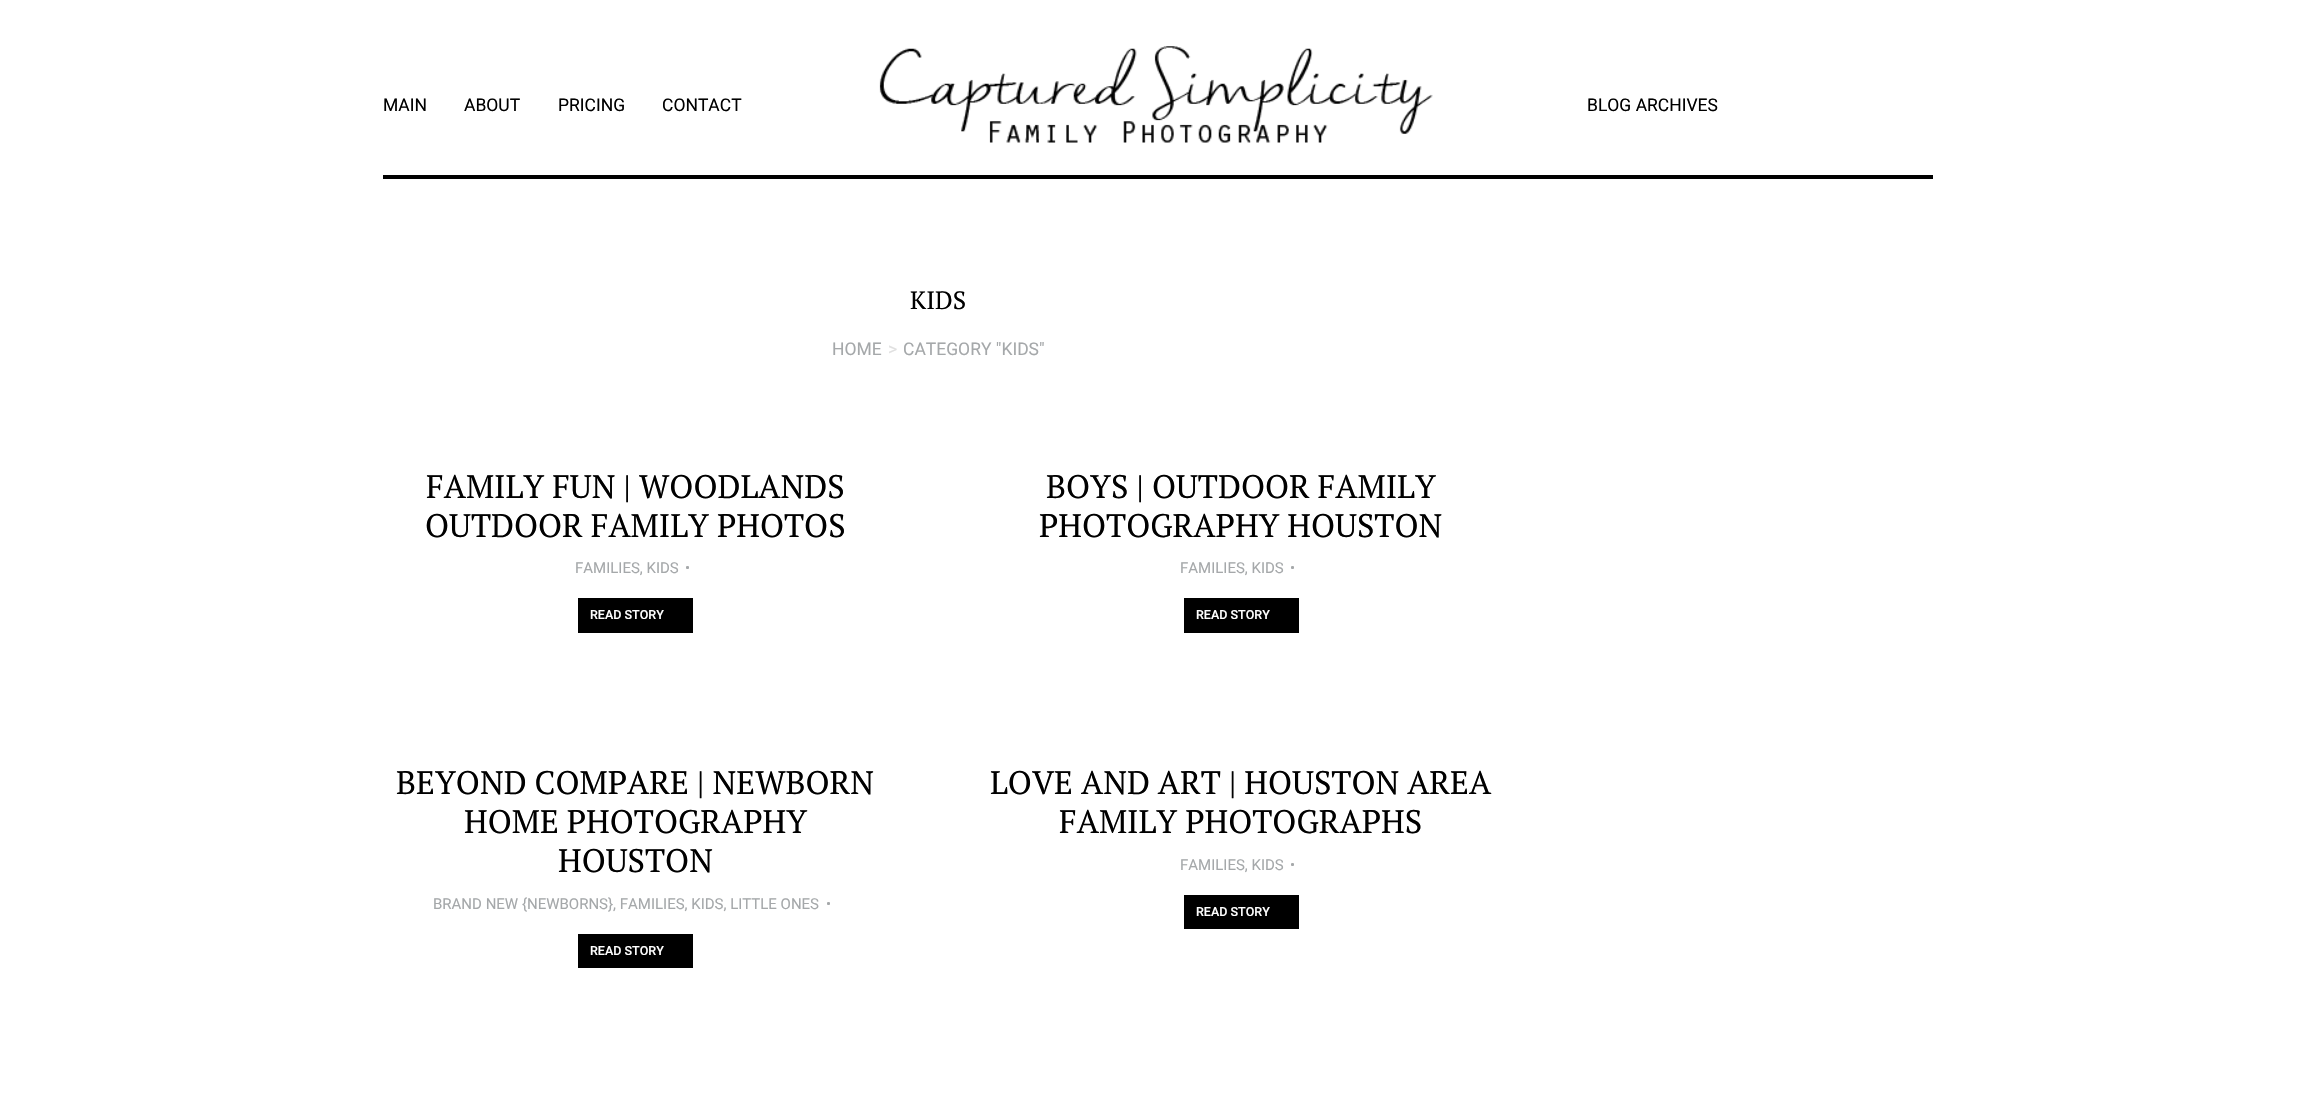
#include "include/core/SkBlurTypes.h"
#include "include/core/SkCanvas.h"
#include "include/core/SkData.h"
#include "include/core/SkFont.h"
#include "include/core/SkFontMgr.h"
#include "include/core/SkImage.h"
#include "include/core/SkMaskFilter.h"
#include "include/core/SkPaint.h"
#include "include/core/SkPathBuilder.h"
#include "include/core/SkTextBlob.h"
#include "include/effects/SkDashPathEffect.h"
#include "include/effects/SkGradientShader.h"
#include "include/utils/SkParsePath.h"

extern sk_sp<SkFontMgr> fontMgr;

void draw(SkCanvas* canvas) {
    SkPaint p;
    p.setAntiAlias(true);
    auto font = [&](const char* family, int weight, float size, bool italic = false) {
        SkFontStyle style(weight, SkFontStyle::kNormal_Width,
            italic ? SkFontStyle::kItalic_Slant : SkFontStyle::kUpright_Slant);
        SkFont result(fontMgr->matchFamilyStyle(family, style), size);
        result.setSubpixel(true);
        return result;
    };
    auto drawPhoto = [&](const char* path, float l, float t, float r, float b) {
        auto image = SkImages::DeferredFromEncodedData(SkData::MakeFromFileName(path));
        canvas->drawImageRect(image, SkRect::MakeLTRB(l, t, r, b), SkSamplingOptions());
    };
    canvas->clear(0xFFFFFFFF);
    auto font1 = font("Roboto", 400, 17.5f);
    p.setColor(0xFF000000);
    {
        const struct { const char* s; float x, y; } items[] = {
            {"MAIN", 383, 111},
            {"ABOUT", 464, 111},
            {"PRICING", 558, 111},
            {"CONTACT", 662, 111},
        };
        for (auto [s, x, y] : items) {
            canvas->drawString(s, x, y, font1, p);
        }
    }
    drawPhoto("media/1.png", 879, 46, 1433, 143);
    canvas->drawString("BLOG ARCHIVES", 1587, 111, font1, p);
    canvas->drawRect(SkRect::MakeLTRB(383, 175, 1933, 179), p);
    auto font2 = font("PT Serif", 400, 25);
    canvas->drawString("KIDS", 910, 309, font2, p);
    p.setColor(0xFFA5A8AA);
    canvas->drawString("HOME", 832, 355, font1, p);
    p.setColor(0xFFE0E0E0);
    canvas->drawString(">", 888, 355, font1, p);
    p.setColor(0xFFA5A8AA);
    canvas->drawString("CATEGORY \"KIDS\"", 903, 355, font1, p);
    auto font3 = font("PT Serif", 400, 32.5f);
    p.setColor(0xFF000000);
    canvas->drawString("FAMILY FUN | WOODLANDS", 426, 498, font3, p);
    canvas->drawString("OUTDOOR FAMILY PHOTOS", 425, 537, font3, p);
    auto font4 = font("Roboto", 400, 15);
    p.setColor(0xFFA5A8AA);
    canvas->drawString("FAMILIES, KIDS", 575, 573, font4, p);
    canvas->drawString("•", 685, 573, font4, p);
    p.setColor(0xFF000000);
    canvas->drawRect(SkRect::MakeLTRB(578, 598, 693, 633), p);
    auto font5 = font("Roboto", 500, 12.5f);
    p.setColor(0xFFFFFFFF);
    canvas->drawString("READ STORY", 590, 619, font5, p);
    p.setColor(0xFF000000);
    canvas->drawString("BOYS | OUTDOOR FAMILY", 1046, 498, font3, p);
    canvas->drawString("PHOTOGRAPHY HOUSTON", 1039, 537, font3, p);
    p.setColor(0xFFA5A8AA);
    canvas->drawString("FAMILIES, KIDS", 1180, 573, font4, p);
    canvas->drawString("•", 1290, 573, font4, p);
    p.setColor(0xFF000000);
    canvas->drawRect(SkRect::MakeLTRB(1184, 598, 1299, 633), p);
    p.setColor(0xFFFFFFFF);
    canvas->drawString("READ STORY", 1196, 619, font5, p);
    p.setColor(0xFF000000);
    {
        const struct { const char* s; float x, y; } items[] = {
            {"BEYOND COMPARE | NEWBORN", 396, 794},
            {"HOME PHOTOGRAPHY", 464, 833},
            {"HOUSTON", 558, 872},
        };
        for (auto [s, x, y] : items) {
            canvas->drawString(s, x, y, font3, p);
        }
    }
    p.setColor(0xFFA5A8AA);
    canvas->drawString("BRAND NEW {NEWBORNS}, FAMILIES, KIDS, LITTLE ONES", 433, 909, font4, p);
    canvas->drawString("•", 826, 909, font4, p);
    p.setColor(0xFF000000);
    canvas->drawRect(SkRect::MakeLTRB(578, 934, 693, 968), p);
    p.setColor(0xFFFFFFFF);
    canvas->drawString("READ STORY", 590, 955, font5, p);
    p.setColor(0xFF000000);
    canvas->drawString("LOVE AND ART | HOUSTON AREA", 990, 794, font3, p);
    canvas->drawString("FAMILY PHOTOGRAPHS", 1059, 833, font3, p);
    p.setColor(0xFFA5A8AA);
    canvas->drawString("FAMILIES, KIDS", 1180, 870, font4, p);
    canvas->drawString("•", 1290, 870, font4, p);
    p.setColor(0xFF000000);
    canvas->drawRect(SkRect::MakeLTRB(1184, 895, 1299, 929), p);
    p.setColor(0xFFFFFFFF);
    canvas->drawString("READ STORY", 1196, 916, font5, p);
}
